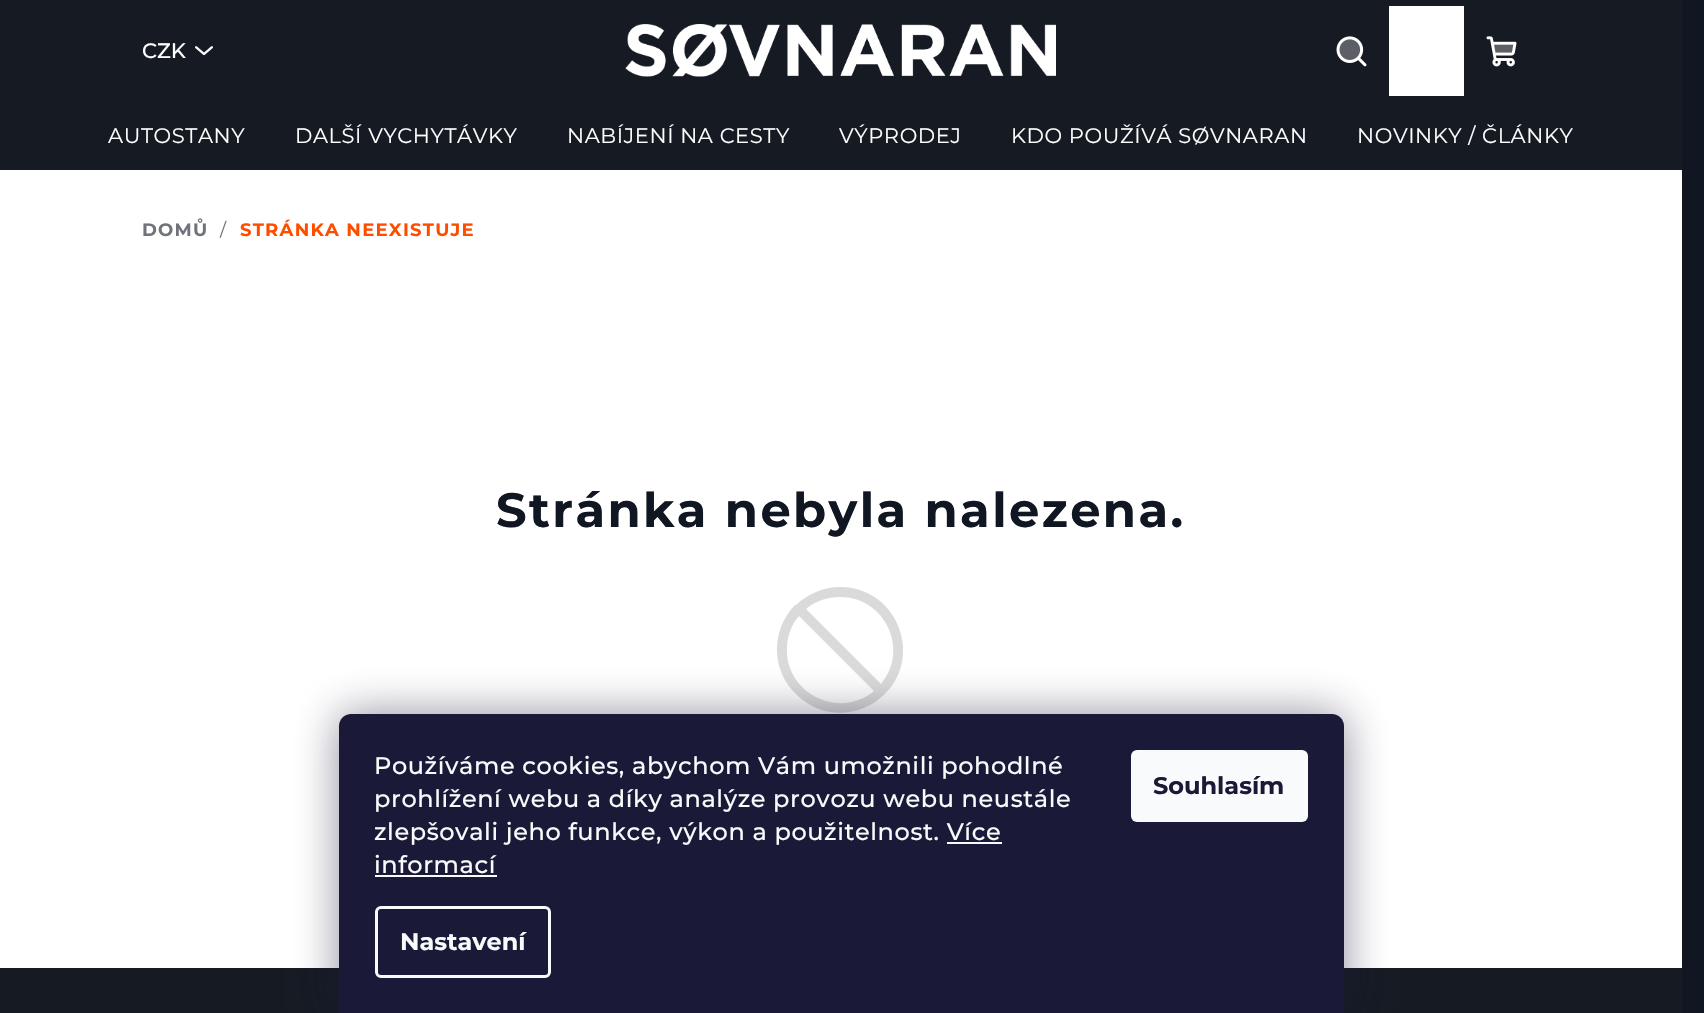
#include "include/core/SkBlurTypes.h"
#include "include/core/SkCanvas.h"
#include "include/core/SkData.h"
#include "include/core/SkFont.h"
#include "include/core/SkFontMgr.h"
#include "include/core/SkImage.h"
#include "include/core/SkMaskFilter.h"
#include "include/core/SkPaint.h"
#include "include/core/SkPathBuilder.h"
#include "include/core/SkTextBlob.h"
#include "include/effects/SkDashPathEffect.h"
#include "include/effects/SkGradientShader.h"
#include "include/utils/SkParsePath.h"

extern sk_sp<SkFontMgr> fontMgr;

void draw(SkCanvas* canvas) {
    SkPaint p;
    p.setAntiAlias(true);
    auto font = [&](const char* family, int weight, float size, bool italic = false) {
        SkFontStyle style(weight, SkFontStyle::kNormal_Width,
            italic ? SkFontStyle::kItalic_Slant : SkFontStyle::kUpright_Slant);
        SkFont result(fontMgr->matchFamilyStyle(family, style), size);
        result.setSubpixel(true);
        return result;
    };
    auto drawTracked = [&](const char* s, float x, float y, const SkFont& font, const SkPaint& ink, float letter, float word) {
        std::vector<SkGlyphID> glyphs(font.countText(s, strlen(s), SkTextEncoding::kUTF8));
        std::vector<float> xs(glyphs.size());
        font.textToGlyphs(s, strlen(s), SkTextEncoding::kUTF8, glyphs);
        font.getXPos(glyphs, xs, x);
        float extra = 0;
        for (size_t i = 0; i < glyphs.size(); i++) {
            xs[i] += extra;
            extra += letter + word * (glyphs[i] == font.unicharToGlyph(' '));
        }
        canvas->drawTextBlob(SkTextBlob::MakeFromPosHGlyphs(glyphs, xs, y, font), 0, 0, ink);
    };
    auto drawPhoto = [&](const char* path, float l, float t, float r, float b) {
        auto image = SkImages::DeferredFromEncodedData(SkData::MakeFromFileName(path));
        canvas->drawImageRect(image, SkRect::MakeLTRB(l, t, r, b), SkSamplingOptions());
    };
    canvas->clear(0xFF111722);
    p.setColor(0xFFFFFFFF);
    canvas->drawRect(SkRect::MakeLTRB(0, 170, 1682, 968), p);
    p.setColor(0xFF151A23);
    canvas->drawRect(SkRect::MakeLTRB(0, 0, 1682, 170), p);
    auto font1 = font("Montserrat", 500, 21);
    p.setColor(0xFFFFFFFF);
    canvas->drawString("CZK", 142, 58, font1, p);
    drawPhoto("media/1.png", 195, 46, 213, 56);
    drawPhoto("media/2.png", 625, 24, 1056, 77);
    drawPhoto("media/3.png", 1336, 36, 1367, 67);
    p.setColor(0x4DFFFFFF);
    canvas->drawPath(SkPathBuilder().moveTo(1350, 61.5f).cubicTo(1365.5f, 61.5f, 1365.5f, 38, 1350, 38).cubicTo(1334.5f, 38, 1334.5f, 61.5f, 1350, 61.5f).close().detach(), p);
    p.setColor(0xFFFFFFFF);
    canvas->drawRect(SkRect::MakeLTRB(1389, 6, 1464, 96), p);
    drawPhoto("media/4.png", 1486, 36, 1517, 67);
    p.setColor(0x4DFFFFFF);
    canvas->drawPath(SkPathBuilder().moveTo(1494.5f, 54).lineTo(1508.5f, 54).cubicTo(1512.5f, 54, 1513, 54.5f, 1513.5f, 51).lineTo(1515, 43).lineTo(1492.5f, 43).close().detach(), p);
    auto font2 = font("Montserrat", 400, 21);
    p.setColor(0xFFFFFFFF);
    {
        const struct { const char* s; float x, y; } items[] = {
            {"AUTOSTANY", 108, 143},
            {"DALŠÍ VYCHYTÁVKY", 295, 143},
            {"NABÍJENÍ NA CESTY", 567, 143},
            {"VÝPRODEJ", 839, 143},
            {"KDO POUŽÍVÁ SØVNARAN", 1011, 143},
            {"NOVINKY / ČLÁNKY", 1357, 143},
        };
        for (auto [s, x, y] : items) {
            drawTracked(s, x, y, font2, p, 0.6f, 0);
        }
    }
    auto font3 = font("Montserrat", 700, 18);
    p.setColor(0xFF70747A);
    drawTracked("DOMŮ", 142, 236, font3, p, 1.25f, 0);
    auto font4 = font("Montserrat", 400, 18);
    drawTracked("/", 220, 236, font4, p, 1.25f, 0);
    p.setColor(0xFFFF4D00);
    drawTracked("STRÁNKA NEEXISTUJE", 240, 236, font3, p, 1.25f, 0);
    auto font5 = font("Montserrat", 700, 48);
    p.setColor(0xFF111722);
    drawTracked("Stránka nebyla nalezena.", 496, 527, font5, p, 2.4f, 0);
    p.setColor(0xFFDADADA);
    canvas->drawPath(SkPathBuilder().moveTo(840, 587).cubicTo(823, 587, 808, 594, 796, 605).lineTo(795, 605).cubicTo(770, 631, 771, 672, 798, 696).cubicTo(840, 735, 906, 701, 903, 647).cubicTo(902, 632, 896, 618, 887, 608).cubicTo(875, 594, 858, 587, 840, 587).close().moveTo(840, 597).cubicTo(885, 597, 910, 650, 881, 684).lineTo(806, 609).cubicTo(815, 601, 828, 597, 840, 597).close().moveTo(799, 616).lineTo(874, 691).cubicTo(838, 721, 783, 692, 787, 645).cubicTo(788, 634, 792, 624, 799, 616).close().detach(), p);
    p.setColor(0xFF151A23);
    canvas->drawRect(SkRect::MakeLTRB(0, 968, 1682, 1013), p);
    p.setColor(0x801B1939);
    p.setMaskFilter(SkMaskFilter::MakeBlur(kNormal_SkBlurStyle, 22.5f));
    canvas->drawRoundRect(SkRect::MakeLTRB(339, 714, 1344, 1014), 12, 12, p);
    p.setMaskFilter(nullptr);
    p.setColor(0xFF1A1937);
    canvas->drawPath(SkPathBuilder().moveTo(351, 714).lineTo(1332, 714).cubicTo(1338.5f, 714, 1344, 719.5f, 1344, 726).lineTo(1344, 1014).lineTo(339, 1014).lineTo(339, 726).cubicTo(339, 719.5f, 344.5f, 714, 351, 714).close().detach(), p);
    auto font6 = font("Montserrat", 500, 24);
    p.setColor(0xFFF8FAFB);
    {
        const struct { const char* s; float x, y; } items[] = {
            {"Používáme cookies, abychom Vám umožnili pohodlné", 374, 774},
            {"prohlížení webu a díky analýze provozu webu neustále", 374, 807},
            {"zlepšovali jeho funkce, výkon a použitelnost. Více", 374, 840},
            {"informací", 374, 873},
        };
        for (auto [s, x, y] : items) {
            drawTracked(s, x, y, font6, p, 0.6f, 0);
        }
    }
    canvas->drawRect(SkRect::MakeLTRB(947, 842, 1002, 844), p);
    canvas->drawRect(SkRect::MakeLTRB(375, 875, 497, 877), p);
    p.setStyle(SkPaint::kStroke_Style);
    p.setStrokeWidth(3);
    canvas->drawRoundRect(SkRect::MakeLTRB(376.5f, 907.5f, 549.5f, 976.5f), 4.5f, 4.5f, p);
    auto font7 = font("Montserrat", 700, 24);
    p.setStyle(SkPaint::kFill_Style);
    canvas->drawString("Nastavení", 400, 950, font7, p);
    canvas->drawRoundRect(SkRect::MakeLTRB(1131, 750, 1308, 822), 6, 6, p);
    p.setColor(0xFF1A1937);
    canvas->drawString("Souhlasím", 1153, 794, font7, p);
}
